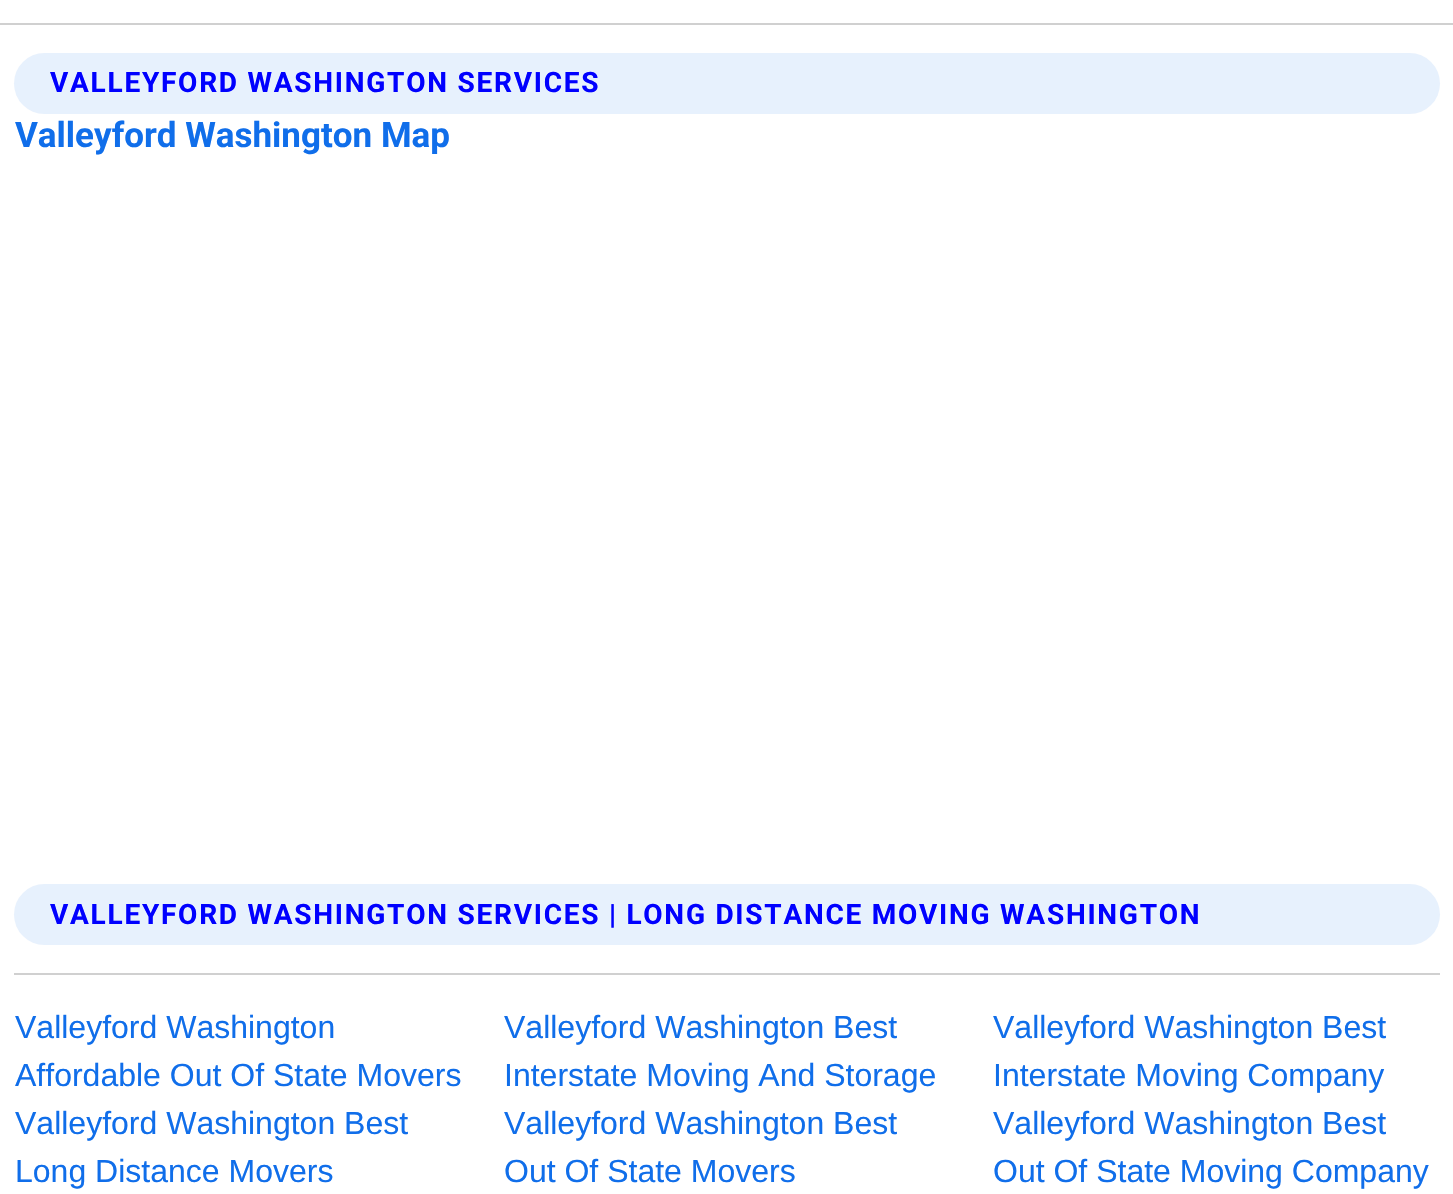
#include "include/core/SkBlurTypes.h"
#include "include/core/SkCanvas.h"
#include "include/core/SkData.h"
#include "include/core/SkFont.h"
#include "include/core/SkFontMgr.h"
#include "include/core/SkImage.h"
#include "include/core/SkMaskFilter.h"
#include "include/core/SkPaint.h"
#include "include/core/SkPathBuilder.h"
#include "include/core/SkTextBlob.h"
#include "include/effects/SkDashPathEffect.h"
#include "include/effects/SkGradientShader.h"
#include "include/utils/SkParsePath.h"

extern sk_sp<SkFontMgr> fontMgr;

void draw(SkCanvas* canvas) {
    SkPaint p;
    p.setAntiAlias(true);
    auto font = [&](const char* family, int weight, float size, bool italic = false) {
        SkFontStyle style(weight, SkFontStyle::kNormal_Width,
            italic ? SkFontStyle::kItalic_Slant : SkFontStyle::kUpright_Slant);
        SkFont result(fontMgr->matchFamilyStyle(family, style), size);
        result.setSubpixel(true);
        return result;
    };
    auto drawTracked = [&](const char* s, float x, float y, const SkFont& font, const SkPaint& ink, float letter, float word) {
        std::vector<SkGlyphID> glyphs(font.countText(s, strlen(s), SkTextEncoding::kUTF8));
        std::vector<float> xs(glyphs.size());
        font.textToGlyphs(s, strlen(s), SkTextEncoding::kUTF8, glyphs);
        font.getXPos(glyphs, xs, x);
        float extra = 0;
        for (size_t i = 0; i < glyphs.size(); i++) {
            xs[i] += extra;
            extra += letter + word * (glyphs[i] == font.unicharToGlyph(' '));
        }
        canvas->drawTextBlob(SkTextBlob::MakeFromPosHGlyphs(glyphs, xs, y, font), 0, 0, ink);
    };
    canvas->clear(0xFFFFFFFF);
    p.setColor(0xFFD0D0D0);
    canvas->drawRect(SkRect::MakeLTRB(0, 23, 1453, 25), p);
    p.setColor(0xFFE7F1FD);
    canvas->drawRoundRect(SkRect::MakeLTRB(14, 53, 1440, 114), 30.5f, 30.5f, p);
    auto font1 = font("Roboto", 700, 28);
    p.setColor(0xFF0000FF);
    drawTracked("VALLEYFORD WASHINGTON SERVICES", 50, 92, font1, p, 1.75f, 0);
    auto font2 = font("Roboto", 700, 35);
    p.setColor(0xFF106EEA);
    canvas->drawString("Valleyford Washington Map", 15, 147, font2, p);
    p.setColor(0xFFE7F1FD);
    canvas->drawRoundRect(SkRect::MakeLTRB(14, 884, 1440, 945), 30.5f, 30.5f, p);
    p.setColor(0xFF0000FF);
    drawTracked("VALLEYFORD WASHINGTON SERVICES | LONG DISTANCE MOVING WASHINGTON", 50, 924, font1, p, 1.75f, 0);
    p.setColor(0xFFD0D0D0);
    canvas->drawRect(SkRect::MakeLTRB(14, 973, 1440, 975), p);
    auto font3 = font("Liberation Sans", 400, 32);
    p.setColor(0xFF106EEA);
    {
        const struct { const char* s; float x, y; } items[] = {
            {"Valleyford Washington", 15, 1038},
            {"Affordable Out Of State Movers", 15, 1086},
            {"Valleyford Washington Best", 504, 1038},
            {"Interstate Moving And Storage", 504, 1086},
            {"Valleyford Washington Best", 993, 1038},
            {"Interstate Moving Company", 993, 1086},
            {"Valleyford Washington Best", 15, 1134},
            {"Long Distance Movers", 15, 1182},
            {"Valleyford Washington Best", 504, 1134},
            {"Out Of State Movers", 504, 1182},
            {"Valleyford Washington Best", 993, 1134},
            {"Out Of State Moving Company", 993, 1182},
        };
        for (auto [s, x, y] : items) {
            canvas->drawString(s, x, y, font3, p);
        }
    }
}
